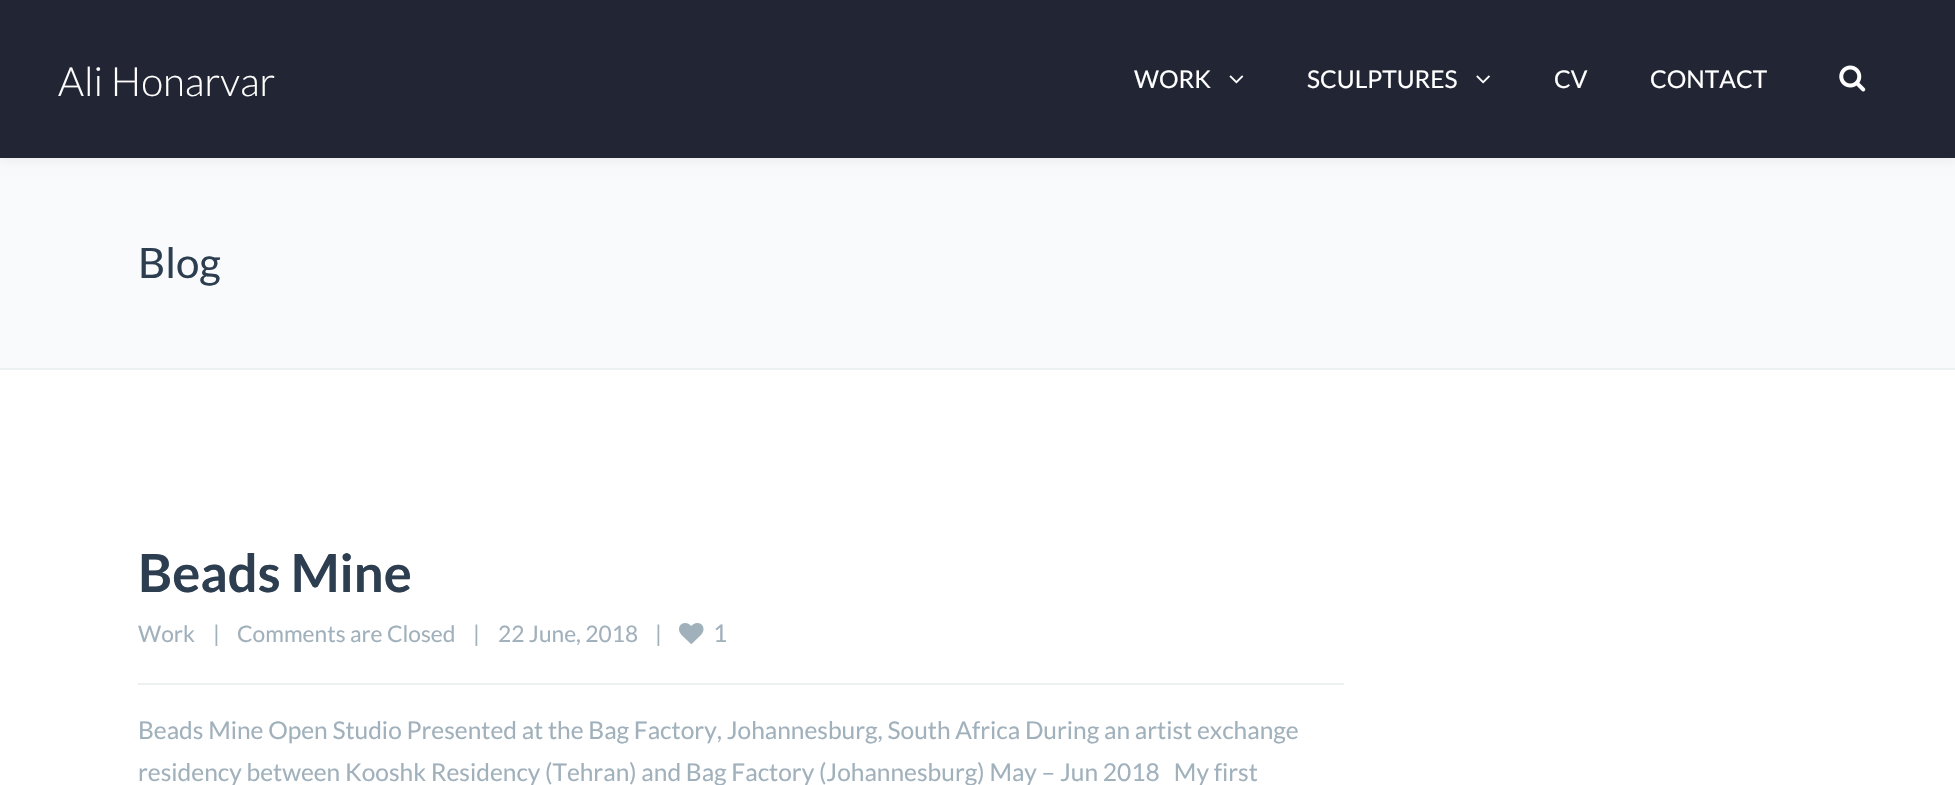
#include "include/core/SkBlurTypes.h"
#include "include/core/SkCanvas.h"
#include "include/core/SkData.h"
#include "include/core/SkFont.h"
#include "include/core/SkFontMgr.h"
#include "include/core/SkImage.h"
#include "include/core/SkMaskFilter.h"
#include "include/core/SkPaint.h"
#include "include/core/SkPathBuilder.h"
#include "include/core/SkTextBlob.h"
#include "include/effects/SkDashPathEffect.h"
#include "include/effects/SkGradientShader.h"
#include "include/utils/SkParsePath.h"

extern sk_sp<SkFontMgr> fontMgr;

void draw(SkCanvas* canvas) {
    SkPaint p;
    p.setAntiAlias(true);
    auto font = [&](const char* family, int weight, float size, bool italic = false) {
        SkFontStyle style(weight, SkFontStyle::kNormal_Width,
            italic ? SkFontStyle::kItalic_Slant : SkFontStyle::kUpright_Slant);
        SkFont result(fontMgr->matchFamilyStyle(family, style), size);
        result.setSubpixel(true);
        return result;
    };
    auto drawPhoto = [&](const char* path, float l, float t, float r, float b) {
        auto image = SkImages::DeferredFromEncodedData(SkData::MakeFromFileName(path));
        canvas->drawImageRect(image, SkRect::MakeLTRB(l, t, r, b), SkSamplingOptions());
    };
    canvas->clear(0xFFFFFFFF);
    p.setColor(0xFFF9FAFB);
    canvas->drawRect(SkRect::MakeLTRB(0, 158, 1955, 368), p);
    p.setColor(0x0D000000);
    p.setMaskFilter(SkMaskFilter::MakeBlur(kNormal_SkBlurStyle, 5));
    canvas->drawRect(SkRect::MakeLTRB(0, 4, 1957, 161), p);
    p.setMaskFilter(nullptr);
    p.setColor(0xFF222533);
    canvas->drawRect(SkRect::MakeLTRB(0, 0, 1955, 158), p);
    auto font1 = font("Lato", 300, 40.25f);
    p.setColor(0xFFFFFFFF);
    canvas->drawString("Ali Honarvar", 58, 96, font1, p);
    auto font2 = font("Lato", 400, 24.5f);
    canvas->drawString("WORK", 1134, 88, font2, p);
    drawPhoto("media/1.png", 1229, 75, 1244, 84);
    canvas->drawString("SCULPTURES", 1307, 88, font2, p);
    drawPhoto("media/2.png", 1476, 75, 1490, 84);
    canvas->drawString("CV", 1554, 88, font2, p);
    canvas->drawString("CONTACT", 1650, 88, font2, p);
    drawPhoto("media/3.png", 1839, 65, 1866, 92);
    p.setColor(0xFFECF0F1);
    canvas->drawRect(SkRect::MakeLTRB(0, 368, 1955, 370), p);
    auto font3 = font("Lato", 400, 42);
    p.setColor(0xFF2C3E50);
    canvas->drawString("Blog", 138, 278, font3, p);
    auto font4 = font("Lato", 700, 52.5f);
    canvas->drawString("Beads Mine", 138, 592, font4, p);
    p.setColor(0xFFECF0F1);
    canvas->drawRect(SkRect::MakeLTRB(138, 683, 1344, 685), p);
    auto font5 = font("Lato", 400, 22.75f);
    p.setColor(0xFFA1B1BC);
    {
        const struct { const char* s; float x, y; } items[] = {
            {"Work", 138, 642},
            {"|", 213, 642},
            {"Comments are Closed", 237, 642},
            {"|", 473, 642},
            {"22 June, 2018", 498, 642},
            {"|", 655, 642},
        };
        for (auto [s, x, y] : items) {
            canvas->drawString(s, x, y, font5, p);
        }
    }
    drawPhoto("media/4.png", 679, 623, 704, 644);
    {
        const struct { const char* s; float x, y; } items[] = {
            {"1", 713, 642},
            {"Beads Mine Open Studio Presented at the Bag Factory, Johannesburg, South Africa During an artist exchange", 138, 739},
            {"residency between Kooshk Residency (Tehran) and Bag Factory (Johannesburg) May – Jun 2018   My first", 138, 781},
        };
        for (auto [s, x, y] : items) {
            canvas->drawString(s, x, y, font2, p);
        }
    }
}
